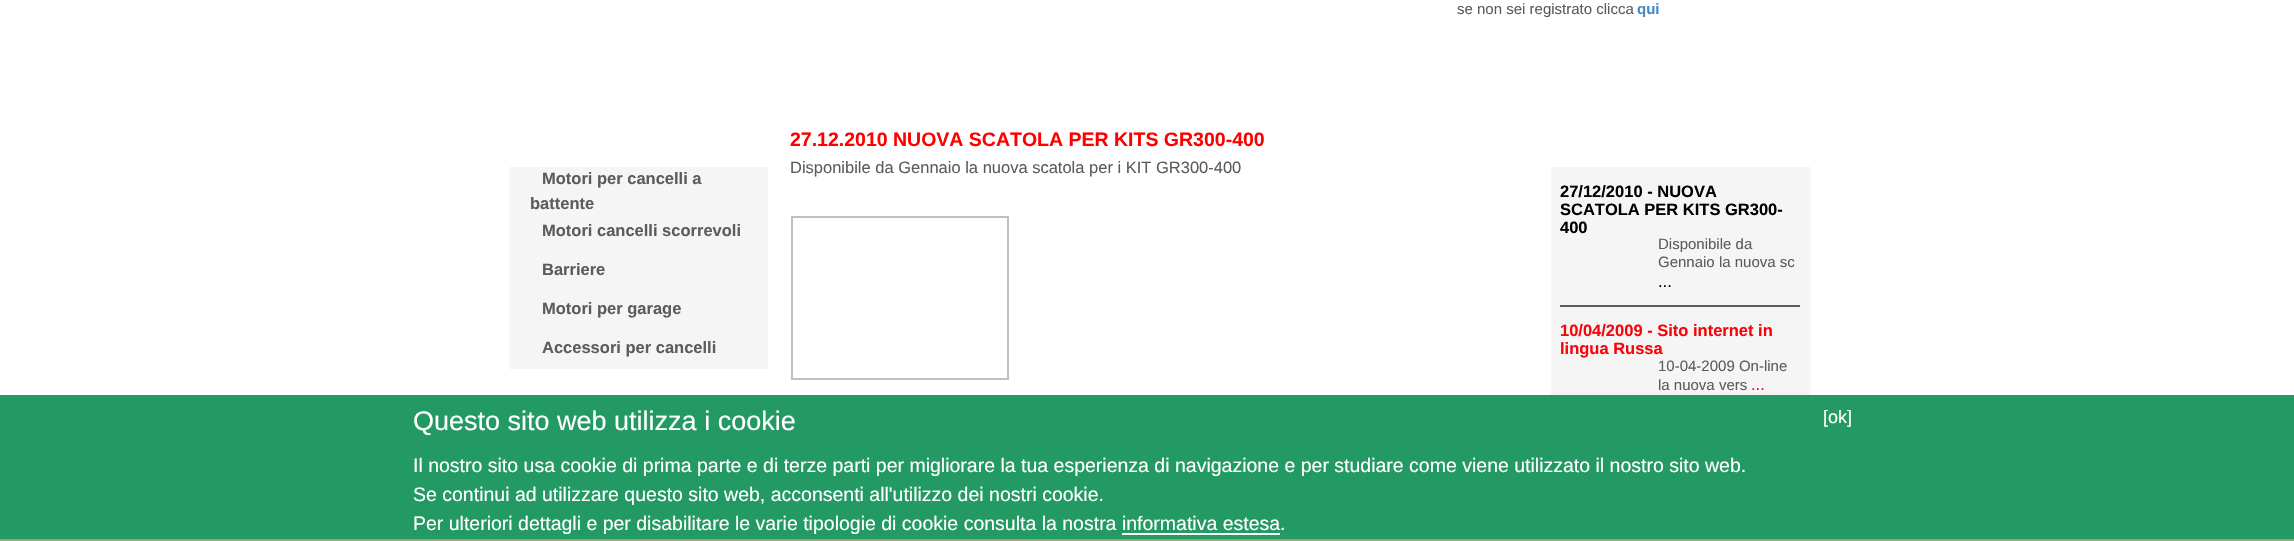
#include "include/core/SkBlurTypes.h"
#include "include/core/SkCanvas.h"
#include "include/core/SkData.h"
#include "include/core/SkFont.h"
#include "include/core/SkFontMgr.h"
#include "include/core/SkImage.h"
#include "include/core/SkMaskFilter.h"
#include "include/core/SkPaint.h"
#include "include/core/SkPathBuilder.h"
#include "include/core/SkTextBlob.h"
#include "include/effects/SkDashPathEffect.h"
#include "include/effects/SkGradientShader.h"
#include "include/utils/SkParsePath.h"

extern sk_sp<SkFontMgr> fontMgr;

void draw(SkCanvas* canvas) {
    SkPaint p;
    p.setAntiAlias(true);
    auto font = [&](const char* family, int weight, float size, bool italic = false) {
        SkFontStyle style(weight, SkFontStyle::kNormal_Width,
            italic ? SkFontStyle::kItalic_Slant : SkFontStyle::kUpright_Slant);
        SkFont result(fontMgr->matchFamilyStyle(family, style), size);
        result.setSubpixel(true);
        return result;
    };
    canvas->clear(0xFFFFFFFF);
    auto font1 = font("Liberation Sans", 400, 15);
    p.setColor(0xFF5C5C5C);
    canvas->drawString("se non sei registrato clicca", 1457, 14, font1, p);
    auto font2 = font("Liberation Sans", 700, 15);
    p.setColor(0xFF428BCA);
    canvas->drawString("qui", 1637, 14, font2, p);
    auto font3 = font("Liberation Sans", 700, 19.5f);
    p.setColor(0xFFFF0000);
    canvas->drawString("27.12.2010 NUOVA SCATOLA PER KITS GR300-400", 790, 146, font3, p);
    auto font4 = font("Liberation Sans", 400, 16.5f);
    p.setColor(0xFF5C5C5C);
    canvas->drawString("Disponibile da Gennaio la nuova scatola per i KIT GR300-400", 790, 173, font4, p);
    {
        const struct { float l, t, r, b; SkColor color; } items[] = {
            {791, 216, 1008, 218, 0xFFC0C0C0},
            {1007, 216, 1009, 380, 0xFFC0C0C0},
            {791, 378, 1008, 380, 0xFFC0C0C0},
            {791, 216, 793, 380, 0xFFC0C0C0},
            {509, 167, 768, 369, 0xFFF5F5F5},
        };
        for (auto [l, t, r, b, color] : items) {
            p.setColor(color);
            canvas->drawRect(SkRect::MakeLTRB(l, t, r, b), p);
        }
    }
    auto font5 = font("Liberation Sans", 700, 16.5f);
    p.setColor(0xFF5C5C5C);
    {
        const struct { const char* s; float x, y; } items[] = {
            {"Motori per cancelli a", 542, 184},
            {"battente", 530, 209},
            {"Motori cancelli scorrevoli", 542, 236},
            {"Barriere", 542, 275},
            {"Motori per garage", 542, 314},
            {"Accessori per cancelli", 542, 353},
        };
        for (auto [s, x, y] : items) {
            canvas->drawString(s, x, y, font5, p);
        }
    }
    p.setColor(0xFFF5F5F5);
    canvas->drawRect(SkRect::MakeLTRB(1551, 167, 1811, 395), p);
    p.setColor(0xFF5B5B5B);
    canvas->drawRect(SkRect::MakeLTRB(1560, 305, 1800, 307), p);
    p.setColor(0xFF000000);
    {
        const struct { const char* s; float x, y; } items[] = {
            {"27/12/2010 - NUOVA", 1560, 197},
            {"SCATOLA PER KITS GR300-", 1560, 215},
            {"400", 1560, 233},
        };
        for (auto [s, x, y] : items) {
            canvas->drawString(s, x, y, font5, p);
        }
    }
    p.setColor(0xFF5C5C5C);
    canvas->drawString("Disponibile da", 1658, 249, font1, p);
    canvas->drawString("Gennaio la nuova sc", 1658, 267, font1, p);
    p.setColor(0xFF000000);
    canvas->drawString("...", 1658, 287, font4, p);
    p.setColor(0xFFF80509);
    canvas->drawString("10/04/2009 - Sito internet in", 1560, 336, font5, p);
    canvas->drawString("lingua Russa", 1560, 354, font5, p);
    p.setColor(0xFF5C5C5C);
    canvas->drawString("10-04-2009 On-line", 1658, 371, font1, p);
    canvas->drawString("la nuova vers", 1658, 390, font1, p);
    p.setColor(0xFFF80509);
    canvas->drawString("...", 1751, 390, font4, p);
    p.setColor(0xFF239963);
    canvas->drawRect(SkRect::MakeLTRB(0, 395, 2294, 539), p);
    p.setColor(0xFFA1A179);
    canvas->drawRect(SkRect::MakeLTRB(0, 539, 2294, 541), p);
    auto font6 = font("Liberation Sans", 400, 27);
    p.setColor(0xFFFFFFFF);
    canvas->drawString("Questo sito web utilizza i cookie", 413, 430, font6, p);
    auto font7 = font("Liberation Sans", 400, 18);
    canvas->drawString("[ok]", 1823, 423, font7, p);
    auto font8 = font("Liberation Sans", 400, 19.5f);
    {
        const struct { const char* s; float x, y; } items[] = {
            {"Il nostro sito usa cookie di prima parte e di terze parti per migliorare la tua esperienza di navigazione e per studiare come viene utilizzato il nostro sito web.", 413, 472},
            {"Se continui ad utilizzare questo sito web, acconsenti all'utilizzo dei nostri cookie.", 413, 501},
            {"Per ulteriori dettagli e per disabilitare le varie tipologie di cookie consulta la nostra informativa estesa.", 413, 530},
        };
        for (auto [s, x, y] : items) {
            canvas->drawString(s, x, y, font8, p);
        }
    }
    canvas->drawRect(SkRect::MakeLTRB(1122, 533, 1280, 535), p);
}
